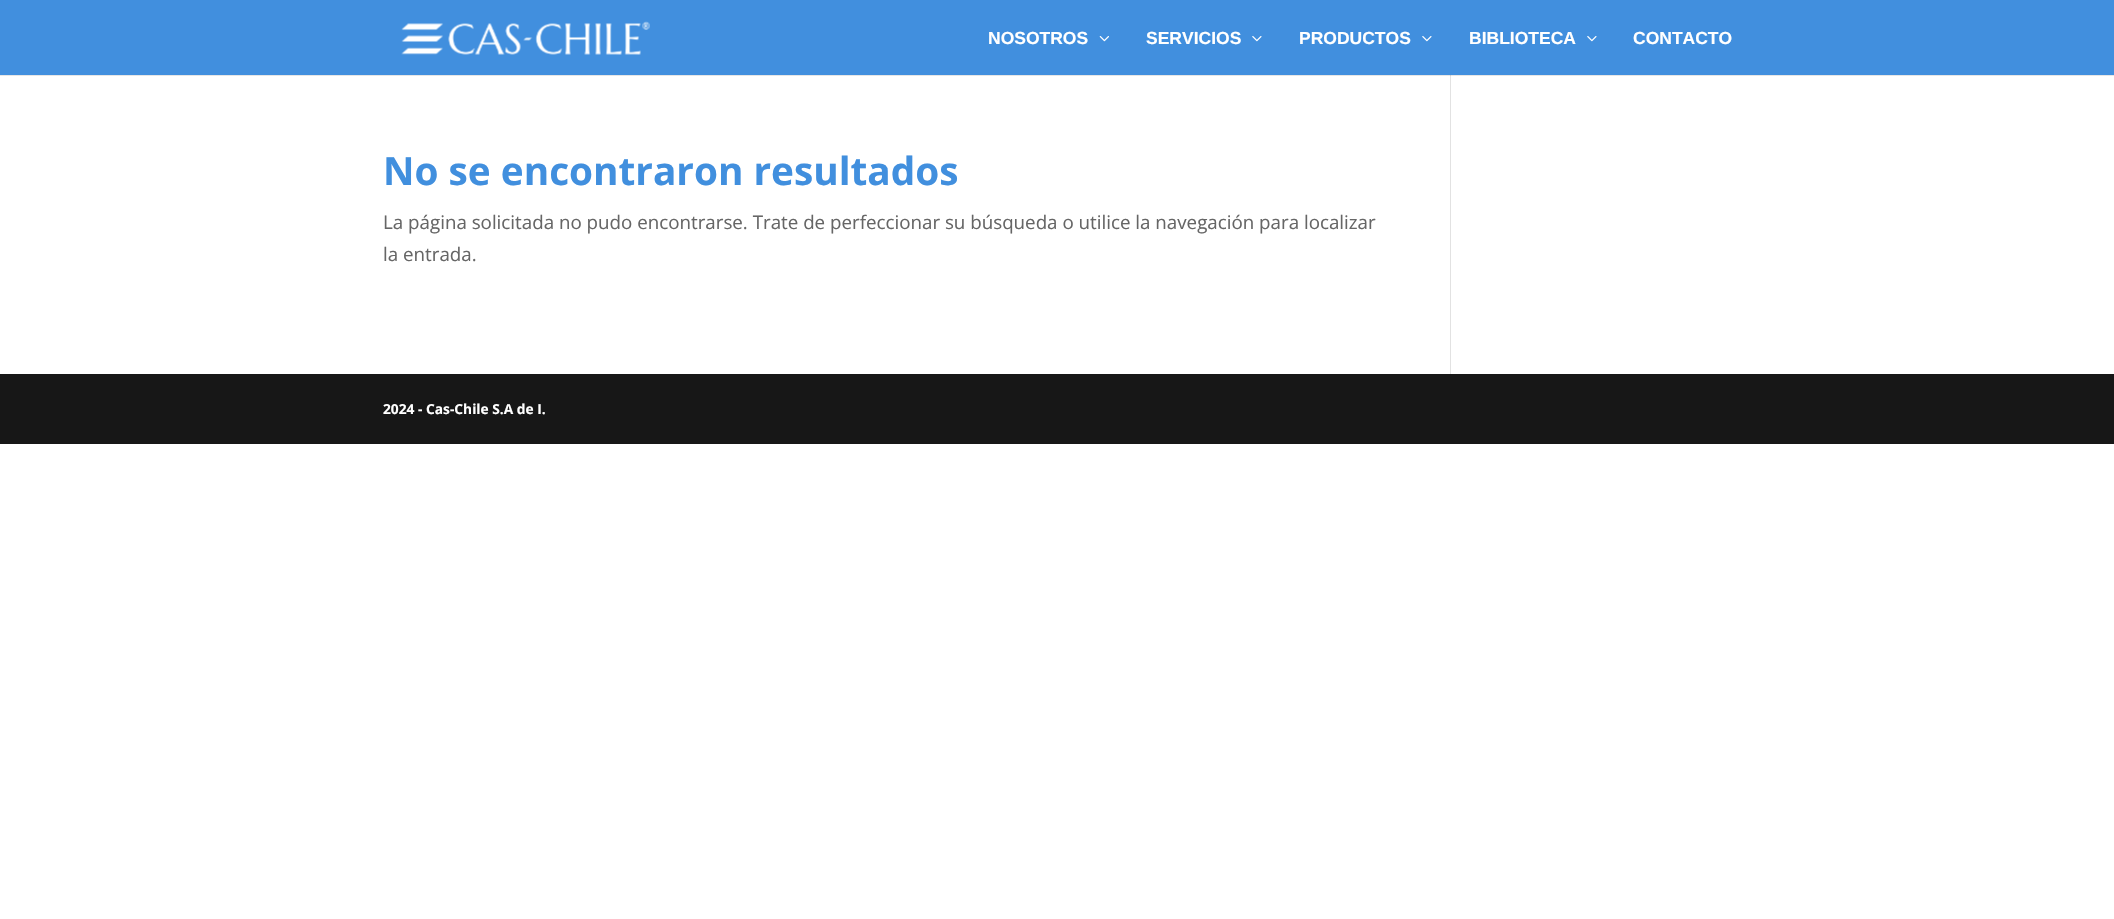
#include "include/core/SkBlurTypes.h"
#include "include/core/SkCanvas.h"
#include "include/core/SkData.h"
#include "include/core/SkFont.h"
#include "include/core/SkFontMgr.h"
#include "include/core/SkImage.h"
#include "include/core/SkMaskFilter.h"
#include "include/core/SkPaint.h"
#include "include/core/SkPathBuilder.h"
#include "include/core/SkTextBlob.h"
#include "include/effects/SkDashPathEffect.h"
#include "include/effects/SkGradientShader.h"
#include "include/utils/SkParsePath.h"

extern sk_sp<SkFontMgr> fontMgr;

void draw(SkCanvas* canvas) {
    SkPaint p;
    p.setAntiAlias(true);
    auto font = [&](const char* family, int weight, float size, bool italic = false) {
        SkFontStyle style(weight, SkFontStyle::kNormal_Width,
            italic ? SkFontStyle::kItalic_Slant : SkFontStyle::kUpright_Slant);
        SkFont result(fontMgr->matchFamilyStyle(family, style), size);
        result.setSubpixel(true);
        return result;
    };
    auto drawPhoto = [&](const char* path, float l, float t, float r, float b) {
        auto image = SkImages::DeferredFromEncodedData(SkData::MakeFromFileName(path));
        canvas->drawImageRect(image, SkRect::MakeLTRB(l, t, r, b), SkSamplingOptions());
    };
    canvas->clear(0xFFFFFFFF);
    p.setColor(0xFFE6E6E6);
    canvas->drawRect(SkRect::MakeLTRB(0, 75, 2114, 76), p);
    p.setColor(0xFF418FDE);
    canvas->drawRect(SkRect::MakeLTRB(0, 0, 2114, 75), p);
    drawPhoto("media/1.png", 401, 21, 650, 55);
    auto font1 = font("Liberation Sans", 700, 17.5f);
    p.setColor(0xFFFFFFFF);
    canvas->drawString("NOSOTROS", 988, 44, font1, p);
    drawPhoto("media/2.png", 1099, 36, 1109, 42);
    canvas->drawString("SERVICIOS", 1146, 44, font1, p);
    drawPhoto("media/3.png", 1252, 36, 1262, 42);
    canvas->drawString("PRODUCTOS", 1299, 44, font1, p);
    drawPhoto("media/3.png", 1422, 36, 1432, 42);
    canvas->drawString("BIBLIOTECA", 1469, 44, font1, p);
    drawPhoto("media/3.png", 1587, 36, 1597, 42);
    canvas->drawString("CONTACTO", 1633, 44, font1, p);
    auto font2 = font("Open Sans", 700, 38.75f);
    p.setColor(0xFF418FDE);
    canvas->drawString("No se encontraron resultados", 383, 185, font2, p);
    auto font3 = font("Open Sans", 400, 18.75f);
    p.setColor(0xFF666666);
    canvas->drawString("La página solicitada no pudo encontrarse. Trate de perfeccionar su búsqueda o utilice la navegación para localizar", 383, 229, font3, p);
    canvas->drawString("la entrada.", 383, 261, font3, p);
    {
        const struct { float l, t, r, b; SkColor color; } items[] = {
            {1450, 75, 1451, 374, 0xFFE2E2E2},
            {1450, 75, 1451, 76, 0xFFCBCBCB},
            {0, 374, 2114, 444, 0xFF171717},
        };
        for (auto [l, t, r, b, color] : items) {
            p.setColor(color);
            canvas->drawRect(SkRect::MakeLTRB(l, t, r, b), p);
        }
    }
    auto font4 = font("Open Sans", 700, 13.75f);
    p.setColor(0xFFFFFFFF);
    canvas->drawString("2024 - Cas-Chile S.A de I.", 383, 414, font4, p);
}
